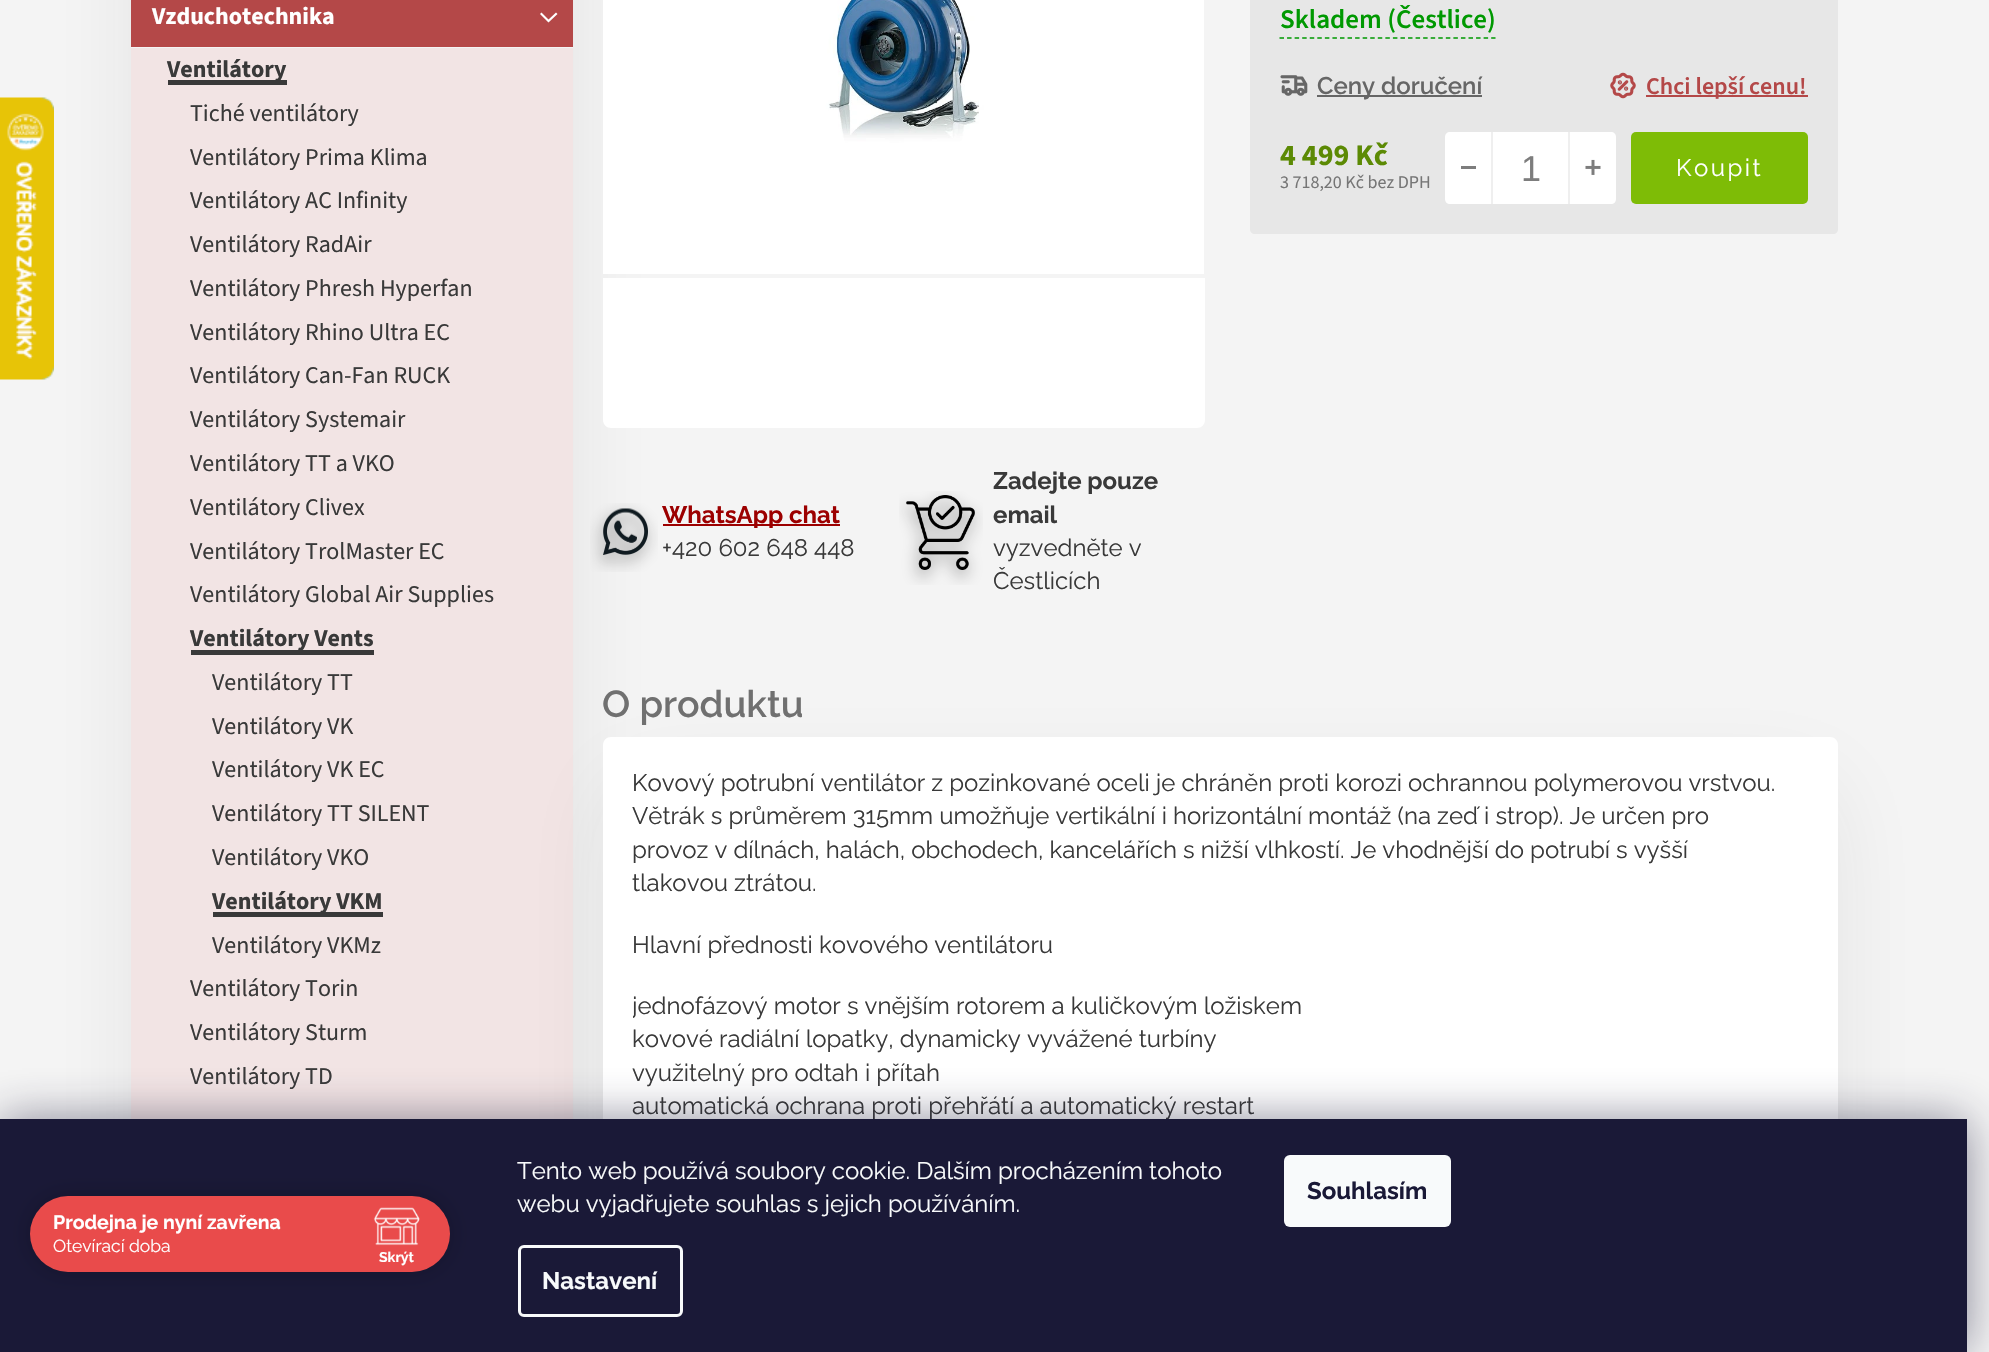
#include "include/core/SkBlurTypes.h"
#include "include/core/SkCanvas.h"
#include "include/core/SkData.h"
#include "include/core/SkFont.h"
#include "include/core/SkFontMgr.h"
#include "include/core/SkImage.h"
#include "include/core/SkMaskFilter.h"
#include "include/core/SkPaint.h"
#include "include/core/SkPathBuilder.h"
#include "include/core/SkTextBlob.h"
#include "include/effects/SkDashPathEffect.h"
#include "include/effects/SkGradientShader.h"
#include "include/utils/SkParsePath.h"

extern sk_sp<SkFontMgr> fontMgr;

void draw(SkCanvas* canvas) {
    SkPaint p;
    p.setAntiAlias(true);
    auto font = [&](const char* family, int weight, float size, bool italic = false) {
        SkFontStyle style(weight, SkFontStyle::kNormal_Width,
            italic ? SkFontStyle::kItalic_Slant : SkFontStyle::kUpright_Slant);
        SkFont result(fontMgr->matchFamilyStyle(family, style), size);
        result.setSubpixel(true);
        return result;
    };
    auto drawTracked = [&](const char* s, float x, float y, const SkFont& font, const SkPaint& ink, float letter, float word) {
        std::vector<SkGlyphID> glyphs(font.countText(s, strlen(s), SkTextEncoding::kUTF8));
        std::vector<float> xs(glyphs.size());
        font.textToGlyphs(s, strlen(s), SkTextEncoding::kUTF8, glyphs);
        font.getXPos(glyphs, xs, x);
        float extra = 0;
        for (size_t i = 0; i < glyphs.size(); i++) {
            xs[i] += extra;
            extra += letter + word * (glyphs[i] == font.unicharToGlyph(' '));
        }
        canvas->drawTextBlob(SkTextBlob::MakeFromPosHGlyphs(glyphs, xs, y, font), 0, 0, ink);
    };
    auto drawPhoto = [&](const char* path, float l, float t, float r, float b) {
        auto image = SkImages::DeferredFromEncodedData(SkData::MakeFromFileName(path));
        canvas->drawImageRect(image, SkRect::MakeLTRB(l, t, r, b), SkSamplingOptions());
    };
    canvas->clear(0xFFF4F4F4);
    p.setColor(0x1A29272C);
    p.setMaskFilter(SkMaskFilter::MakeBlur(kNormal_SkBlurStyle, 45));
    canvas->drawRect(SkRect::MakeLTRB(147, -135, 560, 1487), p);
    p.setMaskFilter(nullptr);
    drawPhoto("media/1.png", 0, 97, 54, 380);
    p.setColor(0xFFF4F4F4);
    canvas->drawRect(SkRect::MakeLTRB(131, 47, 573, 48), p);
    p.setColor(0xFFB44848);
    canvas->drawRect(SkRect::MakeLTRB(131, 0, 573, 47), p);
    auto font1 = font("Source Sans 3", 700, 24);
    p.setColor(0xFFFFFFFF);
    canvas->drawString("Vzduchotechnika", 152, 24, font1, p);
    canvas->drawPath(SkPathBuilder().moveTo(540, 14).lineTo(541.5f, 12.5f).lineTo(548.5f, 19.5f).lineTo(556, 12.5f).lineTo(557.5f, 14).lineTo(548.5f, 22.5f).close().detach(), p);
    p.setColor(0xFFF2E4E4);
    canvas->drawRect(SkRect::MakeLTRB(131, 48, 573, 1119), p);
    p.setColor(0xFF393939);
    canvas->drawRect(SkRect::MakeLTRB(168, 80, 287, 85), p);
    canvas->drawString("Ventilátory", 167, 77, font1, p);
    auto font2 = font("Source Sans 3", 400, 24);
    {
        const struct { const char* s; float x, y; } items[] = {
            {"Tiché ventilátory", 190, 121},
            {"Ventilátory Prima Klima", 190, 165},
            {"Ventilátory AC Infinity", 190, 208},
            {"Ventilátory RadAir", 190, 252},
            {"Ventilátory Phresh Hyperfan", 190, 296},
            {"Ventilátory Rhino Ultra EC", 190, 340},
            {"Ventilátory Can-Fan RUCK", 190, 383},
            {"Ventilátory Systemair", 190, 427},
            {"Ventilátory TT a VKO", 190, 471},
            {"Ventilátory Clivex", 190, 515},
            {"Ventilátory TrolMaster EC", 190, 559},
            {"Ventilátory Global Air Supplies", 190, 602},
        };
        for (auto [s, x, y] : items) {
            canvas->drawString(s, x, y, font2, p);
        }
    }
    canvas->drawRect(SkRect::MakeLTRB(191, 650, 374, 655), p);
    canvas->drawString("Ventilátory Vents", 190, 646, font1, p);
    {
        const struct { const char* s; float x, y; } items[] = {
            {"Ventilátory TT", 212, 690},
            {"Ventilátory VK", 212, 734},
            {"Ventilátory VK EC", 212, 777},
            {"Ventilátory TT SILENT", 212, 821},
            {"Ventilátory VKO", 212, 865},
        };
        for (auto [s, x, y] : items) {
            canvas->drawString(s, x, y, font2, p);
        }
    }
    canvas->drawRect(SkRect::MakeLTRB(213, 912, 383, 917), p);
    canvas->drawString("Ventilátory VKM", 212, 909, font1, p);
    {
        const struct { const char* s; float x, y; } items[] = {
            {"Ventilátory VKMz", 212, 953},
            {"Ventilátory Torin", 190, 996},
            {"Ventilátory Sturm", 190, 1040},
            {"Ventilátory TD", 190, 1084},
        };
        for (auto [s, x, y] : items) {
            canvas->drawString(s, x, y, font2, p);
        }
    }
    p.setColor(0xFFE7E7E7);
    canvas->drawRect(SkRect::MakeLTRB(1250, 0, 1838, 102), p);
    auto font3 = font("Source Sans 3", 600, 27);
    p.setColor(0xFF009901);
    canvas->drawString("Skladem (Čestlice)", 1280, 28, font3, p);
    p.setStyle(SkPaint::kStroke_Style);
    p.setStrokeWidth(1.5f);
    p.setPathEffect(SkDashPathEffect::Make({{4.5f, 3.06f}}, 0));
    canvas->drawPath(SkPathBuilder().moveTo(1279.5f, 38).lineTo(1495.5f, 38).detach(), p);
    p.setPathEffect(nullptr);
    drawPhoto("media/2.png", 1280, 75, 1308, 96);
    p.setStyle(SkPaint::kFill_Style);
    p.setColor(0xFF666666);
    canvas->drawRect(SkRect::MakeLTRB(1317, 95, 1482, 97), p);
    auto font4 = font("Raleway", 600, 24);
    canvas->drawString("Ceny doručení", 1317, 94, font4, p);
    drawPhoto("media/3.png", 1610, 72, 1636, 99);
    p.setColor(0xFFB44848);
    canvas->drawRect(SkRect::MakeLTRB(1646, 95, 1808, 97), p);
    auto font5 = font("Source Sans 3", 600, 24);
    canvas->drawString("Chci lepší cenu!", 1646, 94, font5, p);
    p.setColor(0xFFE7E7E7);
    canvas->drawPath(SkPathBuilder().moveTo(1250, 102).lineTo(1838, 102).lineTo(1838, 229).cubicTo(1838, 232, 1836, 234, 1833, 234).lineTo(1255, 234).cubicTo(1252, 234, 1250, 232, 1250, 229).close().detach(), p);
    auto font6 = font("Source Sans 3", 700, 30);
    p.setColor(0xFF5C8A04);
    canvas->drawString("4 499 Kč", 1280, 165, font6, p);
    auto font7 = font("Source Sans 3", 400, 18);
    p.setColor(0xFF767676);
    canvas->drawString("3 718,20 Kč bez DPH", 1280, 188, font7, p);
    p.setColor(0xFFFFFFFF);
    canvas->drawPath(SkPathBuilder().moveTo(1450, 132).lineTo(1493, 132).lineTo(1493, 204).lineTo(1450, 204).cubicTo(1447, 204, 1445, 202, 1445, 199).lineTo(1445, 137).cubicTo(1445, 134, 1447, 132, 1450, 132).close().detach(), p);
    {
        const struct { float l, t, r, b; SkColor color; } items[] = {
            {1491, 132, 1493, 204, 0xFFEFEFEF},
            {1461, 166, 1476, 169, 0xFF7D7D7D},
            {1493, 132, 1568, 204, 0xFFFFFFFF},
        };
        for (auto [l, t, r, b, color] : items) {
            p.setColor(color);
            canvas->drawRect(SkRect::MakeLTRB(l, t, r, b), p);
        }
    }
    auto font8 = font("Liberation Sans", 400, 36);
    p.setColor(0xFF7D7D7D);
    canvas->drawString("1", 1521, 181, font8, p);
    p.setColor(0xFFFFFFFF);
    canvas->drawPath(SkPathBuilder().moveTo(1568, 132).lineTo(1611, 132).cubicTo(1614, 132, 1616, 134, 1616, 137).lineTo(1616, 199).cubicTo(1616, 202, 1614, 204, 1611, 204).lineTo(1568, 204).close().detach(), p);
    p.setColor(0xFFEFEFEF);
    canvas->drawRect(SkRect::MakeLTRB(1568, 132, 1570, 204), p);
    drawPhoto("media/4.png", 1585, 159, 1601, 175);
    p.setColor(0xFF7EBC06);
    canvas->drawRoundRect(SkRect::MakeLTRB(1631, 132, 1808, 204), 5, 5, p);
    auto font9 = font("Raleway", 400, 24);
    p.setColor(0xFFFFFFFF);
    drawTracked("Koupit", 1676, 176, font9, p, 2.5f, 0);
    drawPhoto("media/5.png", 603, 0, 1204, 274);
    canvas->drawPath(SkPathBuilder().moveTo(603, 278).lineTo(1205, 278).lineTo(1205, 420).cubicTo(1205, 424.5f, 1201.5f, 428, 1197, 428).lineTo(611, 428).cubicTo(606.5f, 428, 603, 424.5f, 603, 420).close().detach(), p);
    drawPhoto("media/6.png", 590, 503, 658, 572);
    p.setColor(0xFF9C0000);
    canvas->drawRect(SkRect::MakeLTRB(663, 524, 840, 526), p);
    auto font10 = font("Raleway", 700, 24);
    canvas->drawString("WhatsApp chat", 662, 523, font10, p);
    p.setColor(0xFF393939);
    canvas->drawString("+420 602 648 448", 662, 556, font9, p);
    drawPhoto("media/7.png", 899, 491, 983, 585);
    canvas->drawString("Zadejte pouze", 993, 489, font10, p);
    canvas->drawString("email", 993, 523, font10, p);
    canvas->drawString("vyzvedněte v", 993, 556, font9, p);
    canvas->drawString("Čestlicích", 993, 589, font9, p);
    p.setColor(0x1A29272C);
    p.setMaskFilter(SkMaskFilter::MakeBlur(kNormal_SkBlurStyle, 45));
    canvas->drawRect(SkRect::MakeLTRB(620, 789, 1824, 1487), p);
    p.setMaskFilter(nullptr);
    auto font11 = font("Raleway", 600, 37.5f);
    p.setColor(0xFF707070);
    canvas->drawString("O produktu", 602, 717, font11, p);
    p.setColor(0xFFFFFFFF);
    canvas->drawPath(SkPathBuilder().moveTo(611, 737).lineTo(1830, 737).cubicTo(1834.5f, 737, 1838, 740.5f, 1838, 745).lineTo(1838, 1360).lineTo(603, 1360).lineTo(603, 745).cubicTo(603, 740.5f, 606.5f, 737, 611, 737).close().detach(), p);
    p.setColor(0xFF393939);
    {
        const struct { const char* s; float x, y; } items[] = {
            {"Kovový potrubní ventilátor z pozinkované oceli je chráněn proti korozi ochrannou polymerovou vrstvou.", 632, 791},
            {"Větrák s průměrem 315mm umožňuje vertikální i horizontální montáž (na zeď i strop). Je určen pro", 632, 824},
            {"provoz v dílnách, halách, obchodech, kancelářích s nižší vlhkostí. Je vhodnější do potrubí s vyšší", 632, 858},
            {"tlakovou ztrátou.", 632, 891},
            {"Hlavní přednosti kovového ventilátoru", 632, 953},
        };
        for (auto [s, x, y] : items) {
            canvas->drawString(s, x, y, font9, p);
        }
    }
    canvas->save();
    canvas->clipRect(SkRect::MakeLTRB(633, 767, 1808, 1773));
    canvas->drawString("jednofázový motor s vnějším rotorem a kuličkovým ložiskem", 632, 1014, font9, p);
    canvas->restore();
    {
        const struct { const char* s; float x, y; } items[] = {
            {"kovové radiální lopatky, dynamicky vyvážené turbíny", 632, 1047},
            {"využitelný pro odtah i přítah", 632, 1081},
            {"automatická ochrana proti přehřátí a automatický restart", 632, 1114},
        };
        for (auto [s, x, y] : items) {
            canvas->drawString(s, x, y, font9, p);
        }
    }
    p.setColor(0x801B1939);
    p.setMaskFilter(SkMaskFilter::MakeBlur(kNormal_SkBlurStyle, 22.5f));
    canvas->drawRect(SkRect::MakeLTRB(0, 1119, 1967, 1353), p);
    p.setMaskFilter(nullptr);
    p.setColor(0xFF1A1937);
    canvas->drawRect(SkRect::MakeLTRB(0, 1119, 1967, 1352), p);
    p.setColor(0x33000000);
    p.setMaskFilter(SkMaskFilter::MakeBlur(kNormal_SkBlurStyle, 11));
    canvas->drawRoundRect(SkRect::MakeLTRB(30, 1196, 450, 1272), 38, 38, p);
    p.setMaskFilter(nullptr);
    p.setColor(0xFFE94B4B);
    canvas->drawRoundRect(SkRect::MakeLTRB(30, 1196, 450, 1272), 38, 38, p);
    auto font12 = font("Raleway", 700, 19.5f);
    p.setColor(0xFFFFFFFF);
    canvas->drawString("Prodejna je nyní zavřena", 53, 1229, font12, p);
    auto font13 = font("Raleway", 400, 17.5f);
    canvas->drawString("Otevírací doba", 53, 1252, font13, p);
    drawPhoto("media/8.png", 373, 1207, 420, 1246);
    auto font14 = font("Raleway", 700, 14);
    canvas->drawString("Skrýt", 379, 1262, font14, p);
    p.setColor(0xFFF8FAFB);
    canvas->drawString("Tento web používá soubory cookie. Dalším procházením tohoto", 517, 1179, font9, p);
    canvas->drawString("webu vyjadřujete souhlas s jejich používáním.", 517, 1212, font9, p);
    p.setStyle(SkPaint::kStroke_Style);
    p.setStrokeWidth(3);
    canvas->drawRoundRect(SkRect::MakeLTRB(519.5f, 1246.5f, 681.5f, 1315.5f), 4.5f, 4.5f, p);
    p.setStyle(SkPaint::kFill_Style);
    canvas->drawString("Nastavení", 542, 1289, font10, p);
    canvas->drawRoundRect(SkRect::MakeLTRB(1284, 1155, 1451, 1227), 6, 6, p);
    p.setColor(0xFF1A1937);
    canvas->drawString("Souhlasím", 1307, 1199, font10, p);
}
